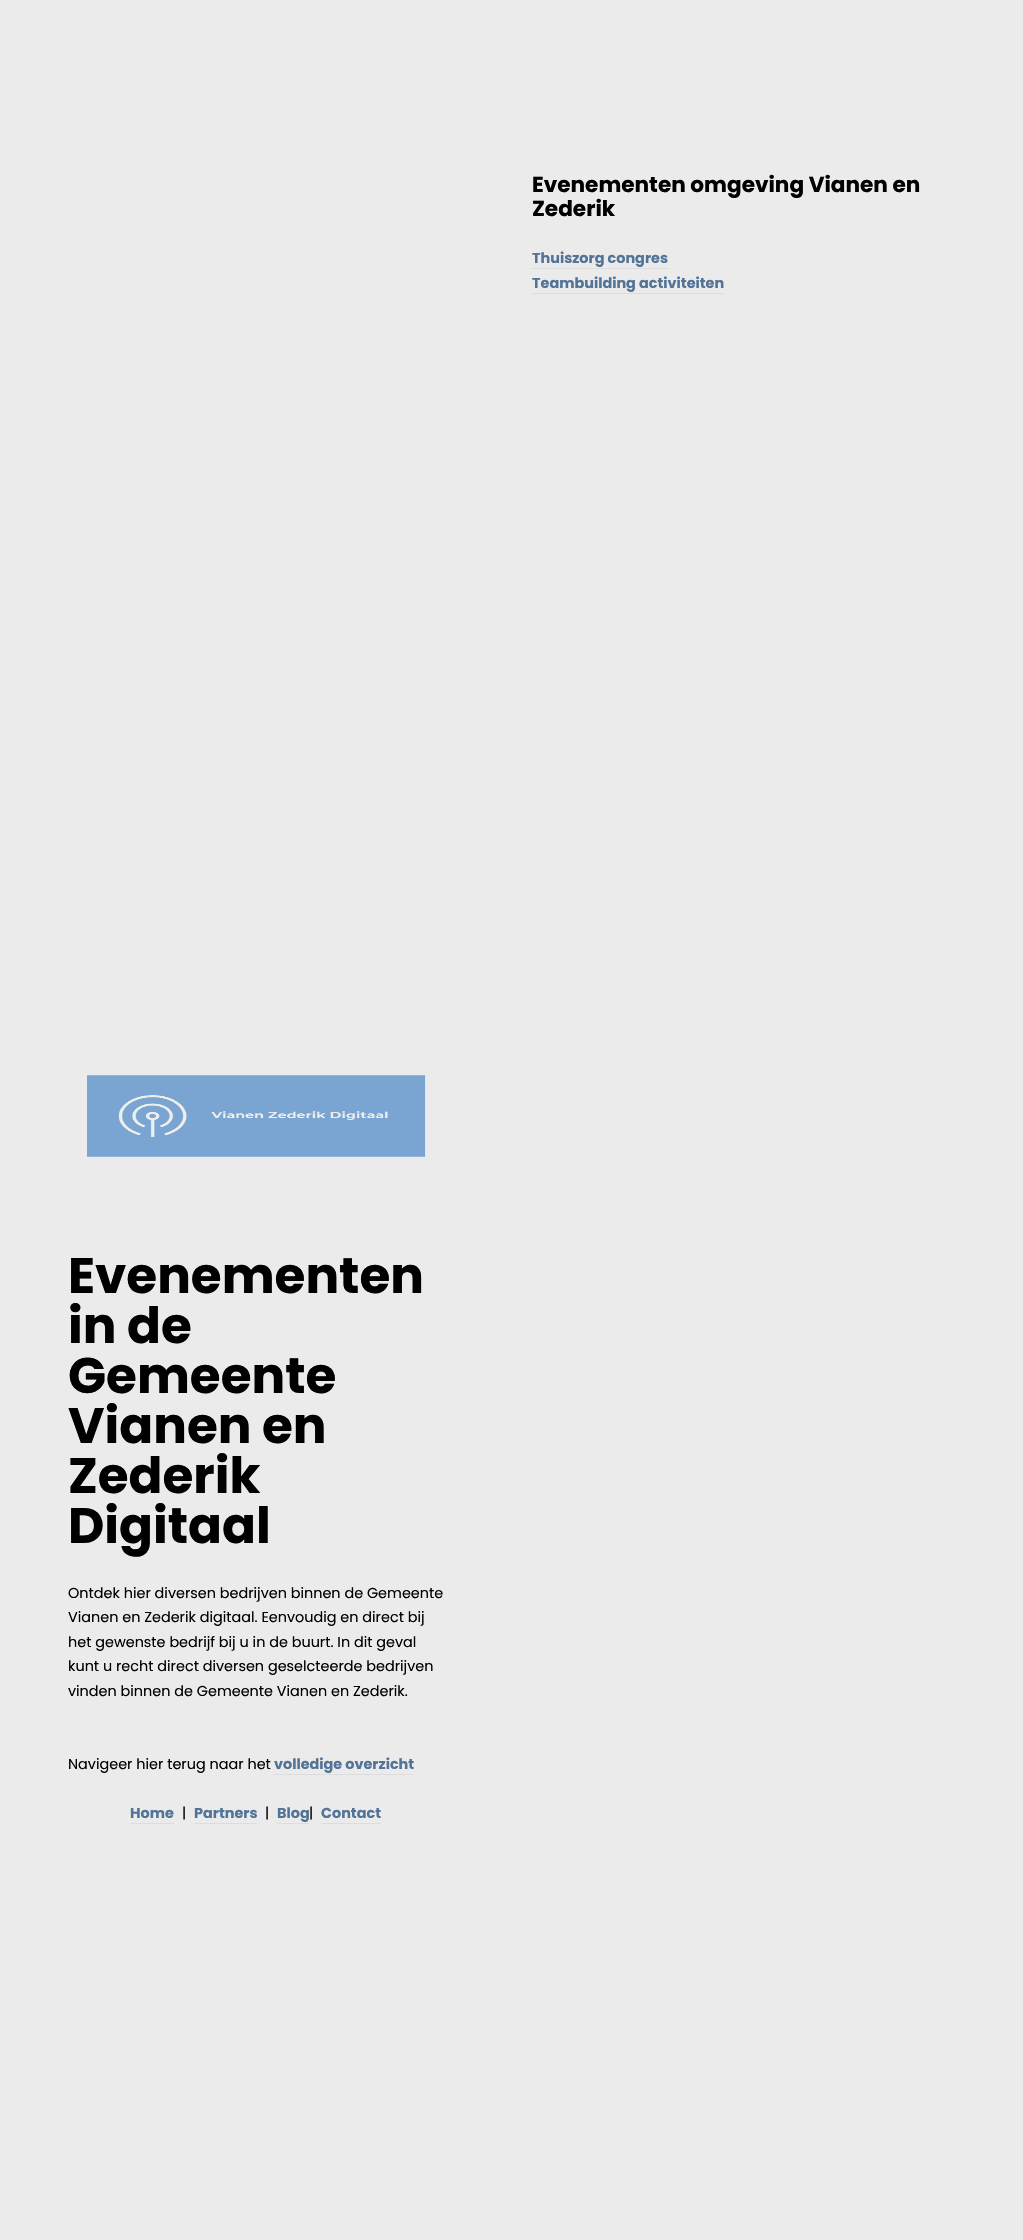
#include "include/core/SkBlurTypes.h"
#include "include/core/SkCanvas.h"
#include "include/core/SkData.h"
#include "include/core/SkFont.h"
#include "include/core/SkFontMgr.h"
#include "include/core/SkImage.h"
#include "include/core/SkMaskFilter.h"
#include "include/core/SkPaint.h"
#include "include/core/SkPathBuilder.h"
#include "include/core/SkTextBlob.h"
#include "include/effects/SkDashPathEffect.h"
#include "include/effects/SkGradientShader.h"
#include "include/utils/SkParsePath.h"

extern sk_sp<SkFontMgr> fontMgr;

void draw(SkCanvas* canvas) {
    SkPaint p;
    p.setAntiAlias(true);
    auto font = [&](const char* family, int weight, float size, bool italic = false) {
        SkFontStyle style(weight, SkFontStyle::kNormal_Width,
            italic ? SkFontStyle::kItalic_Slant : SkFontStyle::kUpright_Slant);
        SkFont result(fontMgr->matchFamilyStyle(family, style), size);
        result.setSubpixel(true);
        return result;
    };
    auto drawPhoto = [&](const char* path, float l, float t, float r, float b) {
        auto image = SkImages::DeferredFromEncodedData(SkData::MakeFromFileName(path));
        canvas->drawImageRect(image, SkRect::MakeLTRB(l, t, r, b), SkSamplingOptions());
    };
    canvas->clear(0xFFEBEBEC);
    auto font1 = font("Poppins", 700, 21.6f);
    p.setColor(0xFF000000);
    canvas->drawString("Evenementen omgeving Vianen en", 532, 192, font1, p);
    canvas->drawString("Zederik", 532, 216, font1, p);
    auto font2 = font("Poppins", 700, 14.4f);
    p.setColor(0xFF537497);
    canvas->drawString("Thuiszorg congres", 532, 263, font2, p);
    p.setColor(0xFFDDDDDD);
    canvas->drawRect(SkRect::MakeLTRB(532, 268, 668, 269), p);
    p.setColor(0xFF537497);
    canvas->drawString("Teambuilding activiteiten", 532, 288, font2, p);
    p.setColor(0xFFDDDDDD);
    canvas->drawRect(SkRect::MakeLTRB(532, 293, 724, 294), p);
    drawPhoto("media/1.png", 87, 1075, 426, 1157);
    auto font3 = font("Poppins", 700, 50);
    p.setColor(0xFF000000);
    {
        const struct { const char* s; float x, y; } items[] = {
            {"Evenementen", 68, 1293},
            {"in de", 68, 1343},
            {"Gemeente", 68, 1393},
            {"Vianen en", 68, 1443},
            {"Zederik", 68, 1493},
            {"Digitaal", 68, 1543},
        };
        for (auto [s, x, y] : items) {
            canvas->drawString(s, x, y, font3, p);
        }
    }
    auto font4 = font("Poppins", 400, 14.4f);
    {
        const struct { const char* s; float x, y; } items[] = {
            {"Ontdek hier diversen bedrijven binnen de Gemeente", 68, 1598},
            {"Vianen en Zederik digitaal. Eenvoudig en direct bij", 68, 1622},
            {"het gewenste bedrijf bij u in de buurt. In dit geval", 68, 1647},
            {"kunt u recht direct diversen geselcteerde bedrijven", 68, 1671},
            {"vinden binnen de Gemeente Vianen en Zederik.", 68, 1696},
            {"Navigeer hier terug naar het", 68, 1769},
        };
        for (auto [s, x, y] : items) {
            canvas->drawString(s, x, y, font4, p);
        }
    }
    p.setColor(0xFF537497);
    canvas->drawString("volledige overzicht", 274, 1769, font2, p);
    p.setColor(0xFFDDDDDD);
    canvas->drawRect(SkRect::MakeLTRB(274, 1774, 414, 1775), p);
    p.setColor(0xFF537497);
    canvas->drawString("Home", 130, 1818, font2, p);
    p.setColor(0xFFDDDDDD);
    canvas->drawRect(SkRect::MakeLTRB(130, 1823, 174, 1824), p);
    p.setColor(0xFF000000);
    canvas->drawString("|", 182, 1818, font4, p);
    p.setColor(0xFF537497);
    canvas->drawString("Partners", 194, 1818, font2, p);
    p.setColor(0xFFDDDDDD);
    canvas->drawRect(SkRect::MakeLTRB(194, 1823, 257, 1824), p);
    p.setColor(0xFF000000);
    canvas->drawString("|", 265, 1818, font4, p);
    p.setColor(0xFF537497);
    canvas->drawString("Blog", 277, 1818, font2, p);
    p.setColor(0xFFDDDDDD);
    canvas->drawRect(SkRect::MakeLTRB(277, 1823, 309, 1824), p);
    p.setColor(0xFF000000);
    canvas->drawString("|", 309, 1818, font4, p);
    p.setColor(0xFF537497);
    canvas->drawString("Contact", 321, 1818, font2, p);
    p.setColor(0xFFDDDDDD);
    canvas->drawRect(SkRect::MakeLTRB(321, 1823, 381, 1824), p);
}
